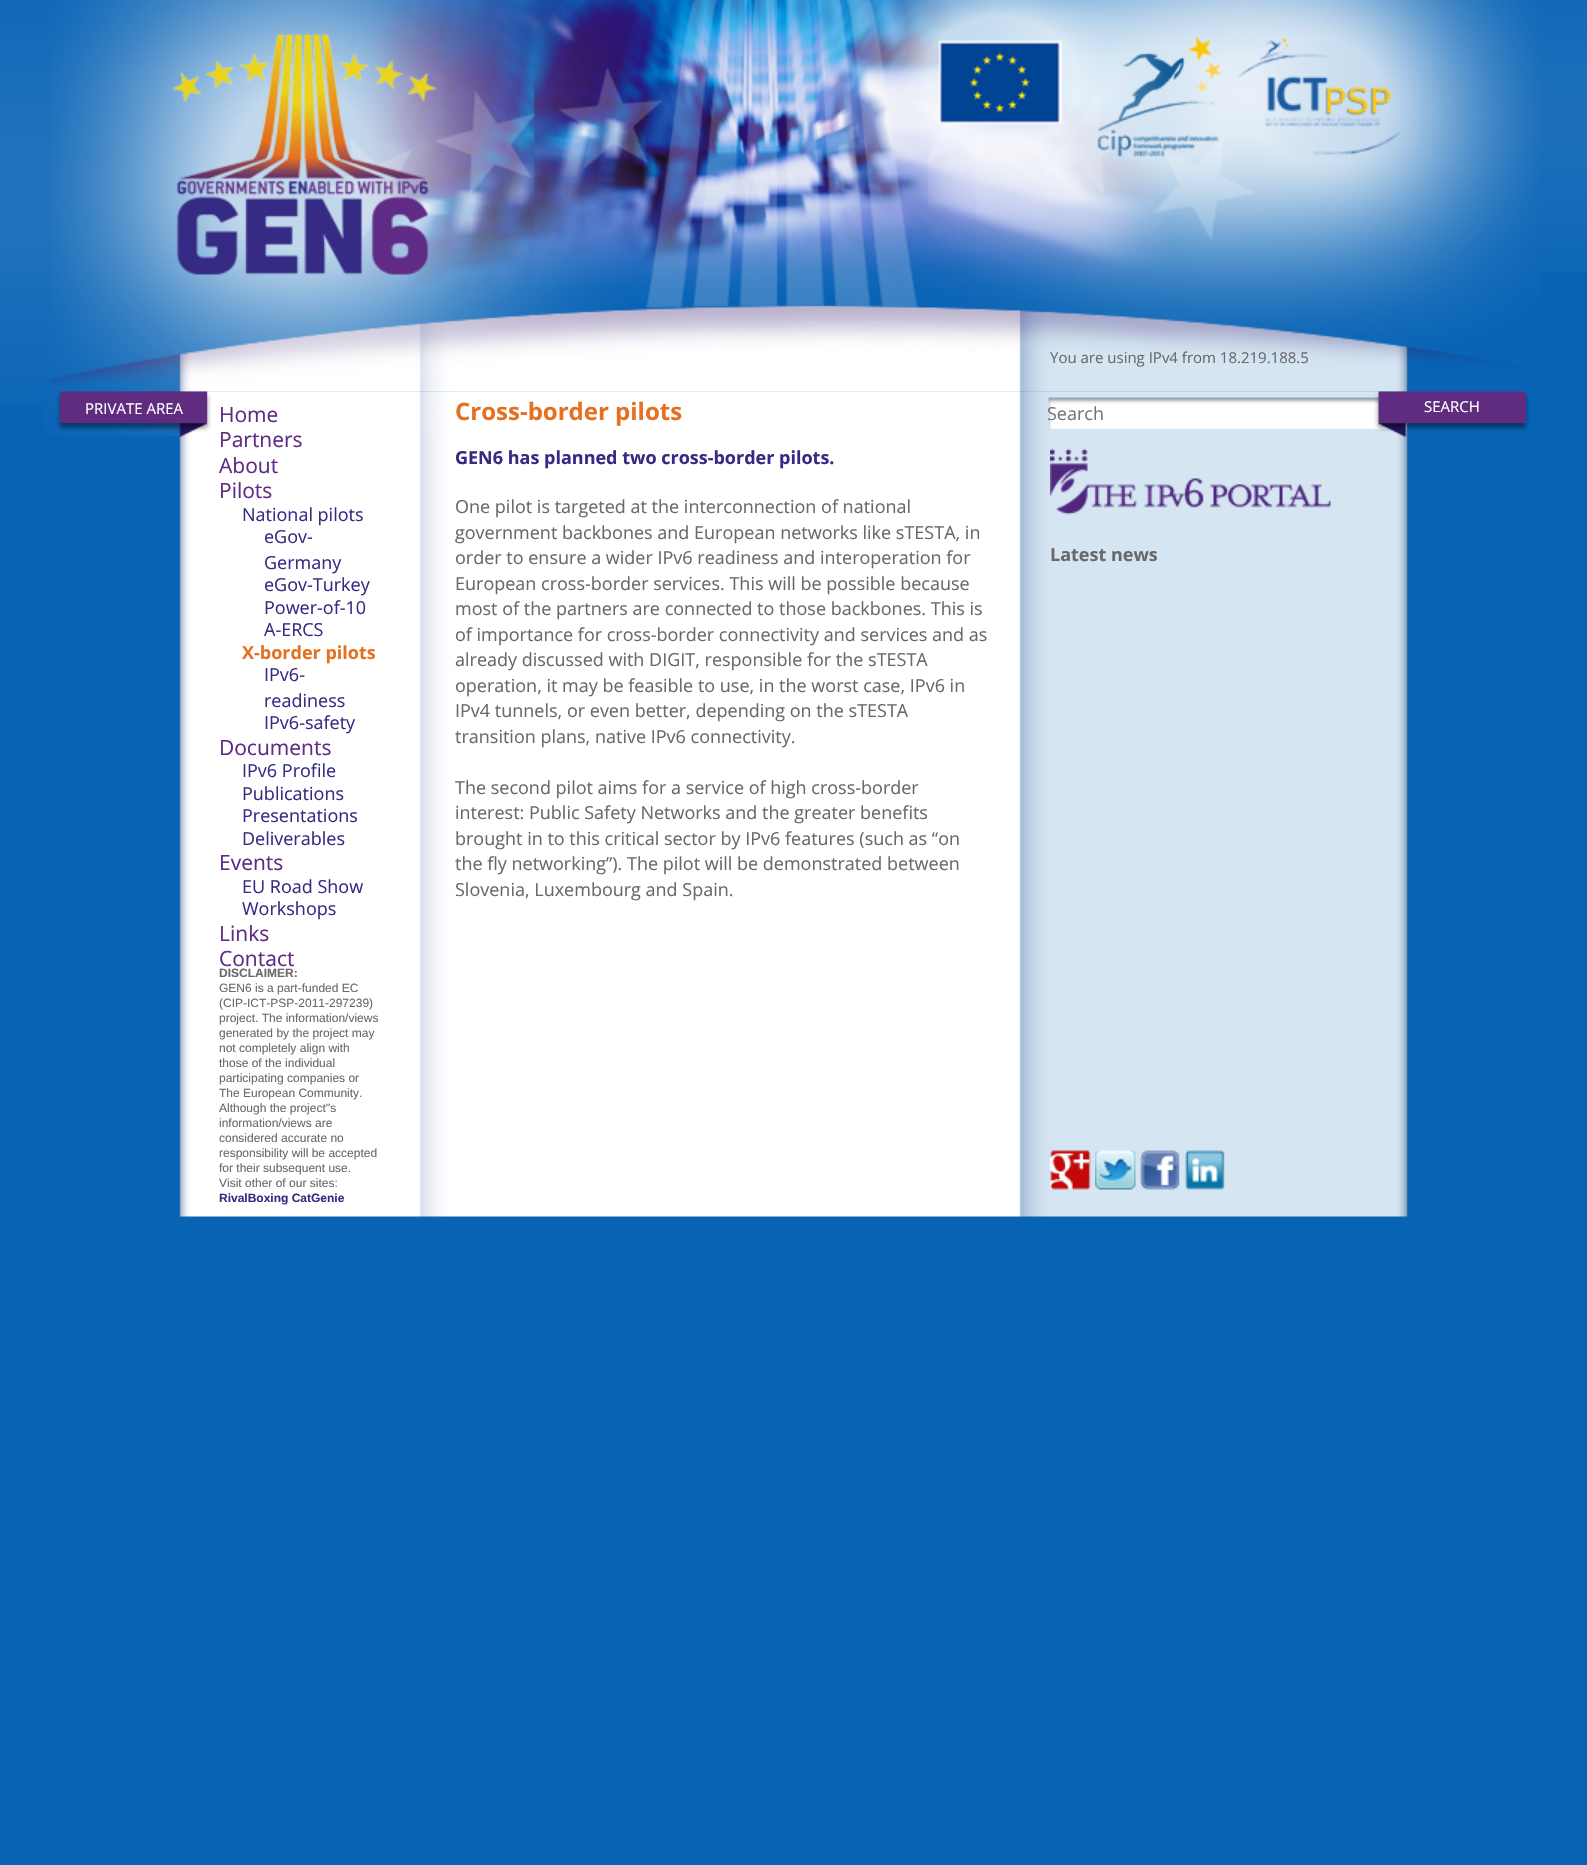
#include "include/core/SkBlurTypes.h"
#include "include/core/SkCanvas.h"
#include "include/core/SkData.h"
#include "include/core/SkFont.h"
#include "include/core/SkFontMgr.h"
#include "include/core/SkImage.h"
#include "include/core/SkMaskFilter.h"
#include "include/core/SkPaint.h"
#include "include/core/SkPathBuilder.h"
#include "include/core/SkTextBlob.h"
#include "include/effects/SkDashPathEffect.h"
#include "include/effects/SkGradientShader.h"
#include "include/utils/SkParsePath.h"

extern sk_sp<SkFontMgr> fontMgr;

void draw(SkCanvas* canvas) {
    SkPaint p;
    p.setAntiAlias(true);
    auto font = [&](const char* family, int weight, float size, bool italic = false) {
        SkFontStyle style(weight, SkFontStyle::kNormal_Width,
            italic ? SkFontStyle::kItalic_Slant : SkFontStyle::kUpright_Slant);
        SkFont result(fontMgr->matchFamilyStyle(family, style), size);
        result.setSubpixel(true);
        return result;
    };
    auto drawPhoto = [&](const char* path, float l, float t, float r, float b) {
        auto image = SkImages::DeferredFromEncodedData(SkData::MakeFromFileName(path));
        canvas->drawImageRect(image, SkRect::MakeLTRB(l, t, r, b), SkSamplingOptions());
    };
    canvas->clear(0xFF0863B5);
    drawPhoto("media/1.png", 0, 0, 794, 406);
    drawPhoto("media/2.png", 50, 0, 1541, 392);
    drawPhoto("media/3.png", 1541, 0, 1587, 272);
    drawPhoto("media/4.png", 44, 391, 1408, 1217);
    auto font1 = font("Open Sans", 400, 15);
    p.setColor(0xFF696969);
    canvas->drawString("You are using IPv4 from 18.219.188.5", 1050, 363, font1, p);
    drawPhoto("media/6.png", 44, 391, 1530, 437);
    auto font2 = font("Open Sans", 400, 21);
    p.setColor(0xFF5F2B84);
    {
        const struct { const char* s; float x, y; } items[] = {
            {"Home", 219, 422},
            {"Partners", 219, 447},
            {"About", 219, 473},
            {"Pilots", 219, 498},
        };
        for (auto [s, x, y] : items) {
            canvas->drawString(s, x, y, font2, p);
        }
    }
    auto font3 = font("Open Sans", 400, 18);
    p.setColor(0xFF362B84);
    {
        const struct { const char* s; float x, y; } items[] = {
            {"National pilots", 242, 521},
            {"eGov-", 264, 543},
            {"Germany", 264, 569},
            {"eGov-Turkey", 264, 591},
            {"Power-of-10", 264, 614},
            {"A-ERCS", 264, 636},
        };
        for (auto [s, x, y] : items) {
            canvas->drawString(s, x, y, font3, p);
        }
    }
    auto font4 = font("Open Sans", 700, 18);
    p.setColor(0xFFE57021);
    canvas->drawString("X-border pilots", 242, 659, font4, p);
    p.setColor(0xFF362B84);
    {
        const struct { const char* s; float x, y; } items[] = {
            {"IPv6-", 264, 681},
            {"readiness", 264, 707},
            {"IPv6-safety", 264, 729},
        };
        for (auto [s, x, y] : items) {
            canvas->drawString(s, x, y, font3, p);
        }
    }
    p.setColor(0xFF5F2B84);
    canvas->drawString("Documents", 219, 755, font2, p);
    p.setColor(0xFF362B84);
    {
        const struct { const char* s; float x, y; } items[] = {
            {"IPv6 Profile", 242, 777},
            {"Publications", 242, 800},
            {"Presentations", 242, 822},
            {"Deliverables", 242, 845},
        };
        for (auto [s, x, y] : items) {
            canvas->drawString(s, x, y, font3, p);
        }
    }
    p.setColor(0xFF5F2B84);
    canvas->drawString("Events", 219, 870, font2, p);
    p.setColor(0xFF362B84);
    canvas->drawString("EU Road Show", 242, 893, font3, p);
    canvas->drawString("Workshops", 242, 915, font3, p);
    p.setColor(0xFF5F2B84);
    canvas->drawString("Links", 219, 941, font2, p);
    canvas->drawString("Contact", 219, 966, font2, p);
    auto font5 = font("Open Sans", 700, 24);
    p.setColor(0xFFE57021);
    canvas->drawString("Cross-border pilots", 455, 420, font5, p);
    p.setColor(0xFF362B84);
    canvas->drawString("GEN6 has planned two cross-border pilots.", 455, 464, font4, p);
    drawPhoto("media/5.png", 1050, 448, 1331, 515);
    p.setColor(0xFF696969);
    {
        const struct { const char* s; float x, y; } items[] = {
            {"One pilot is targeted at the interconnection of national", 455, 513},
            {"government backbones and European networks like sTESTA, in", 455, 539},
            {"order to ensure a wider IPv6 readiness and interoperation for", 455, 564},
            {"European cross-border services. This will be possible because", 455, 590},
            {"most of the partners are connected to those backbones. This is", 455, 615},
            {"of importance for cross-border connectivity and services and as", 455, 641},
            {"already discussed with DIGIT, responsible for the sTESTA", 455, 666},
            {"operation, it may be feasible to use, in the worst case, IPv6 in", 455, 692},
            {"IPv4 tunnels, or even better, depending on the sTESTA", 455, 717},
            {"transition plans, native IPv6 connectivity.", 455, 743},
            {"The second pilot aims for a service of high cross-border", 455, 794},
            {"interest: Public Safety Networks and the greater benefits", 455, 819},
            {"brought in to this critical sector by IPv6 features (such as “on", 455, 845},
            {"the fly networking”). The pilot will be demonstrated between", 455, 870},
            {"Slovenia, Luxembourg and Spain.", 455, 896},
        };
        for (auto [s, x, y] : items) {
            canvas->drawString(s, x, y, font3, p);
        }
    }
    canvas->drawString("Latest news", 1050, 561, font4, p);
    auto font6 = font("Liberation Sans", 700, 12);
    canvas->drawString("DISCLAIMER:", 219, 977, font6, p);
    auto font7 = font("Liberation Sans", 400, 12);
    {
        const struct { const char* s; float x, y; } items[] = {
            {"GEN6 is a part-funded EC", 219, 992},
            {"(CIP-ICT-PSP-2011-297239)", 219, 1007},
            {"project. The information/views", 219, 1022},
            {"generated by the project may", 219, 1037},
            {"not completely align with", 219, 1052},
            {"those of the individual", 219, 1067},
            {"participating companies or", 219, 1082},
            {"The European Community.", 219, 1097},
            {"Although the project''s", 219, 1112},
            {"information/views are", 219, 1127},
            {"considered accurate no", 219, 1142},
            {"responsibility will be accepted", 219, 1157},
            {"for their subsequent use.", 219, 1172},
            {"Visit other of our sites:", 219, 1187},
        };
        for (auto [s, x, y] : items) {
            canvas->drawString(s, x, y, font7, p);
        }
    }
    p.setColor(0xFF362B84);
    canvas->drawString("RivalBoxing CatGenie", 219, 1202, font6, p);
    p.setColor(0xFF602C7F);
    canvas->drawRect(SkRect::MakeLTRB(60, 392, 207, 423), p);
    p.setColor(0xFFFFFFFF);
    canvas->drawString("PRIVATE AREA", 85, 414, font1, p);
    p.setColor(0xFF757575);
    canvas->drawString("Search", 1047, 420, font3, p);
    p.setColor(0xFF602C7F);
    canvas->drawRect(SkRect::MakeLTRB(1379, 392, 1526, 423), p);
    p.setColor(0xFFFFFFFF);
    canvas->drawString("SEARCH", 1424, 412, font1, p);
    drawPhoto("media/7.png", 1050, 1150, 1091, 1190);
    drawPhoto("media/8.png", 1095, 1150, 1136, 1190);
    drawPhoto("media/9.png", 1140, 1150, 1180, 1190);
    drawPhoto("media/10.png", 1185, 1150, 1225, 1190);
}
